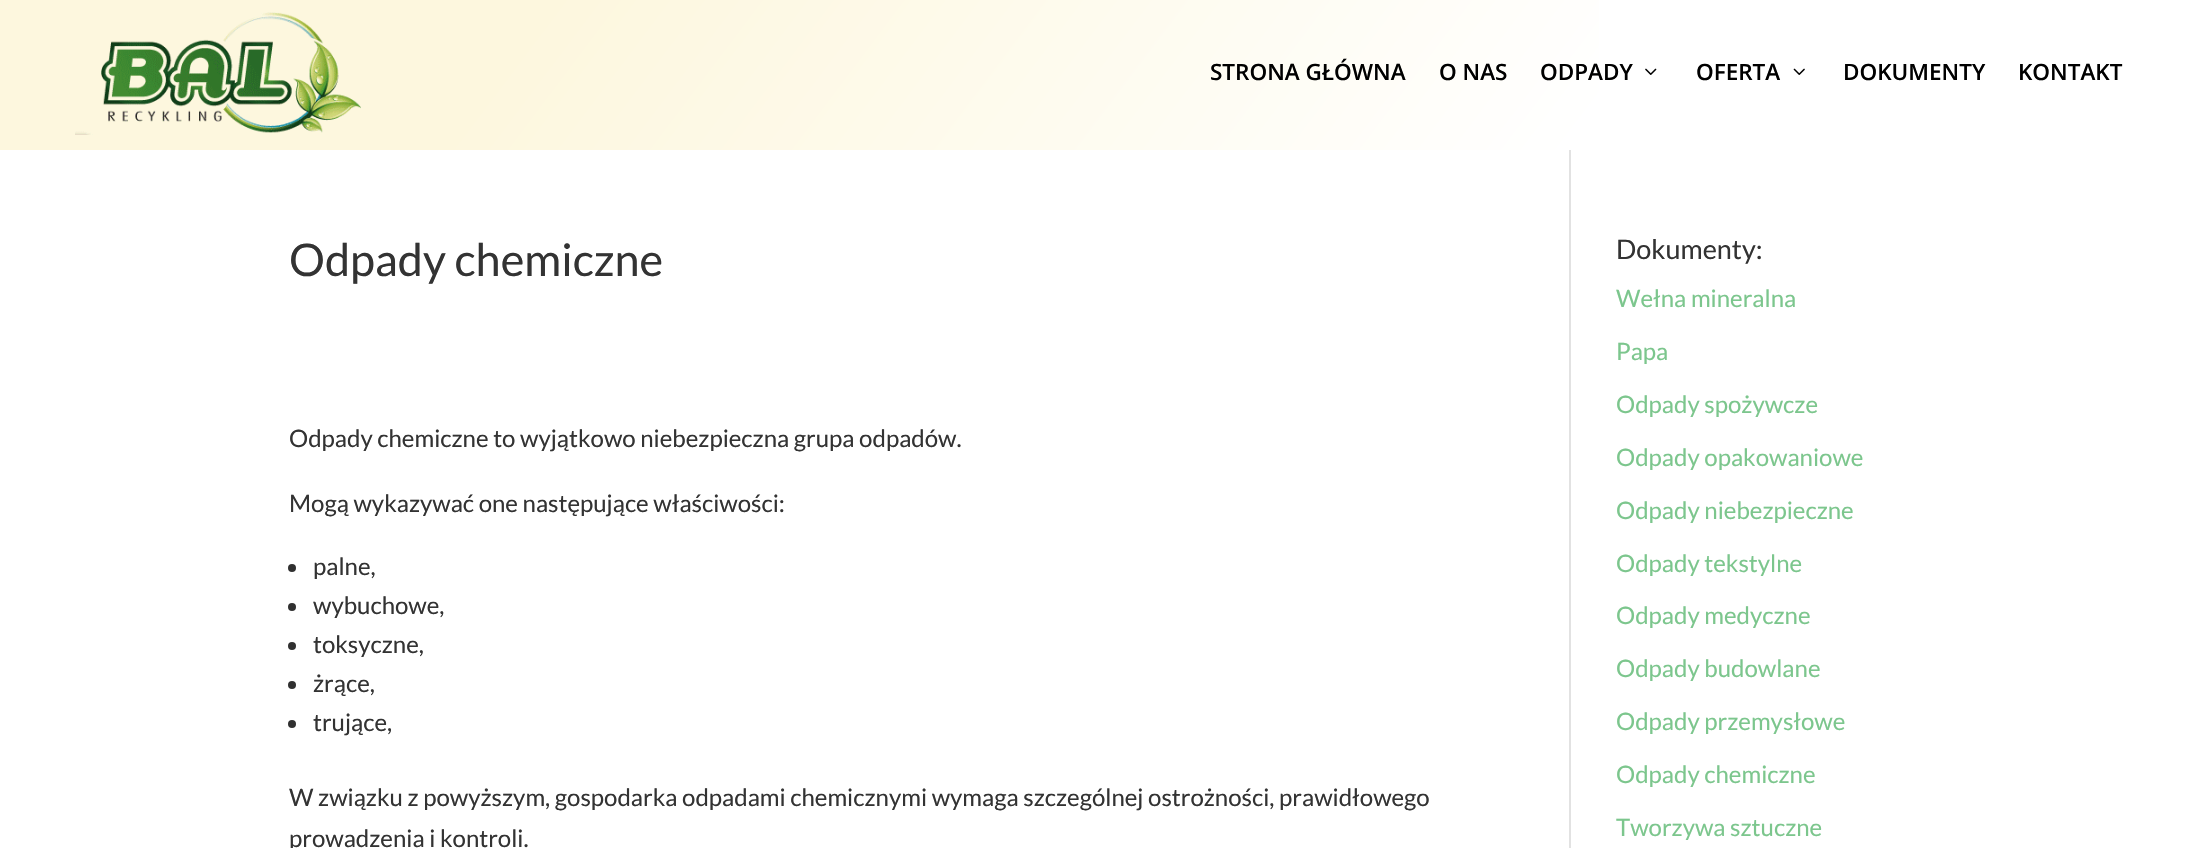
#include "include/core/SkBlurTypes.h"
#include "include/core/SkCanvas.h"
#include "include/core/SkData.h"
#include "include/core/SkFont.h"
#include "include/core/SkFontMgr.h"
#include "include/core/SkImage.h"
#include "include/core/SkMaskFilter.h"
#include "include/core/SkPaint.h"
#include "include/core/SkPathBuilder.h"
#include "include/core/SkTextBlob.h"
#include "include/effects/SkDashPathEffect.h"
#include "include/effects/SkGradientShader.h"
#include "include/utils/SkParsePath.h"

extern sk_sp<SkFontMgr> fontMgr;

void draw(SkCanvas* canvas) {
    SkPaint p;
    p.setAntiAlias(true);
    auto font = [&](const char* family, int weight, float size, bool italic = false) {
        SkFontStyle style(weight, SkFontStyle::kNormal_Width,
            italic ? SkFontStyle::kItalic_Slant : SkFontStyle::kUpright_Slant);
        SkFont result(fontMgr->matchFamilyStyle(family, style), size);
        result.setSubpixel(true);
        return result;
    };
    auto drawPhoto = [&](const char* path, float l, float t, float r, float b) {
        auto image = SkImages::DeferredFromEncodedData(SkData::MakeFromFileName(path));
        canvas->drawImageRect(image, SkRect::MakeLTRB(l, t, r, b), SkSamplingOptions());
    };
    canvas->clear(0xFFFFFFFF);
    p.setColor(0xFFE2E2E2);
    canvas->drawRect(SkRect::MakeLTRB(1569, 149, 1571, 848), p);
    {
        const SkColor colors[] = {0xFFFDF7DE, 0xFFFFFFFF};
        const float stops[] = {0.24f, 0.73f};
        const SkPoint ends[] = {{360, -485}, {1837, 628}};
        p.setShader(SkGradientShader::MakeLinear(ends, colors, stops, 2, SkTileMode::kClamp));
        p.setAlpha(255);
    }
    canvas->drawRect(SkRect::MakeLTRB(0, 0, 1599, 150), p);
    drawPhoto("media/1.png", 75, 12, 361, 135);
    auto font1 = font("Open Sans", 600, 22.5f);
    p.setShader(nullptr);
    p.setColor(0xFF000000);
    {
        const struct { const char* s; float x, y; } items[] = {
            {"STRONA GŁÓWNA", 1210, 80},
            {"O NAS", 1439, 80},
            {"ODPADY", 1540, 80},
        };
        for (auto [s, x, y] : items) {
            canvas->drawString(s, x, y, font1, p);
        }
    }
    drawPhoto("media/2.png", 1645, 68, 1657, 75);
    canvas->drawString("OFERTA", 1696, 80, font1, p);
    drawPhoto("media/3.png", 1793, 68, 1805, 75);
    canvas->drawString("DOKUMENTY", 1843, 80, font1, p);
    canvas->drawString("KONTAKT", 2018, 80, font1, p);
    auto font2 = font("Lato", 400, 45);
    p.setColor(0xFF333333);
    canvas->drawString("Odpady chemiczne", 289, 276, font2, p);
    auto font3 = font("Lato", 400, 24);
    canvas->drawString("Odpady chemiczne to wyjątkowo niebezpieczna grupa odpadów.", 289, 447, font3, p);
    canvas->drawString("Mogą wykazywać one następujące właściwości:", 289, 512, font3, p);
    p.setColor(0xFF303030);
    canvas->drawCircle(292, 568, 4, p);
    p.setColor(0xFF333333);
    canvas->drawString("palne,", 313, 575, font3, p);
    p.setColor(0xFF303030);
    canvas->drawCircle(292, 607, 4, p);
    p.setColor(0xFF333333);
    canvas->drawString("wybuchowe,", 313, 614, font3, p);
    p.setColor(0xFF303030);
    canvas->drawCircle(292, 646, 4, p);
    p.setColor(0xFF333333);
    canvas->drawString("toksyczne,", 313, 653, font3, p);
    p.setColor(0xFF303030);
    canvas->drawCircle(292, 685, 4, p);
    p.setColor(0xFF333333);
    canvas->drawString("żrące,", 313, 692, font3, p);
    p.setColor(0xFF303030);
    canvas->drawCircle(292, 724, 4, p);
    p.setColor(0xFF333333);
    {
        const struct { const char* s; float x, y; } items[] = {
            {"trujące,", 313, 731},
            {"W związku z powyższym, gospodarka odpadami chemicznymi wymaga szczególnej ostrożności, prawidłowego", 289, 806},
            {"prowadzenia i kontroli.", 289, 847},
        };
        for (auto [s, x, y] : items) {
            canvas->drawString(s, x, y, font3, p);
        }
    }
    auto font4 = font("Lato", 400, 27);
    canvas->drawString("Dokumenty:", 1616, 259, font4, p);
    p.setColor(0xFF7CC68D);
    {
        const struct { const char* s; float x, y; } items[] = {
            {"Wełna mineralna", 1616, 307},
            {"Papa", 1616, 360},
            {"Odpady spożywcze", 1616, 413},
            {"Odpady opakowaniowe", 1616, 466},
            {"Odpady niebezpieczne", 1616, 519},
            {"Odpady tekstylne", 1616, 572},
            {"Odpady medyczne", 1616, 624},
            {"Odpady budowlane", 1616, 677},
            {"Odpady przemysłowe", 1616, 730},
            {"Odpady chemiczne", 1616, 783},
            {"Tworzywa sztuczne", 1616, 836},
        };
        for (auto [s, x, y] : items) {
            canvas->drawString(s, x, y, font3, p);
        }
    }
}
